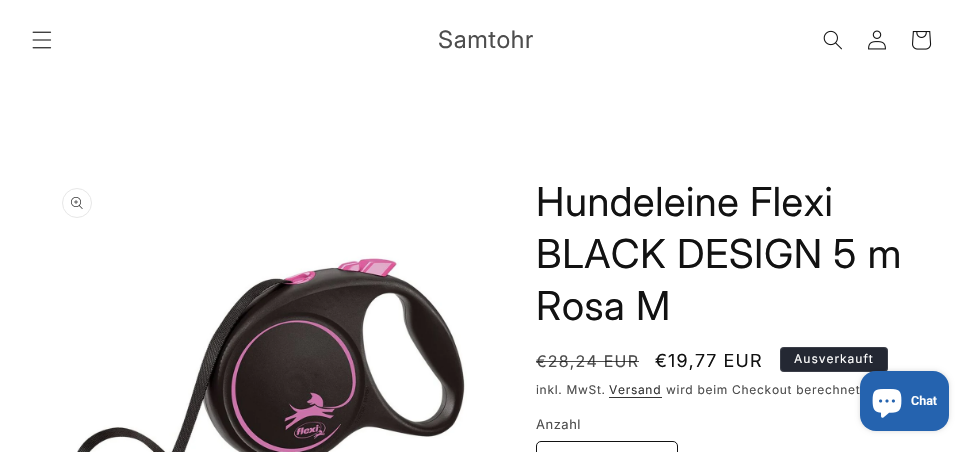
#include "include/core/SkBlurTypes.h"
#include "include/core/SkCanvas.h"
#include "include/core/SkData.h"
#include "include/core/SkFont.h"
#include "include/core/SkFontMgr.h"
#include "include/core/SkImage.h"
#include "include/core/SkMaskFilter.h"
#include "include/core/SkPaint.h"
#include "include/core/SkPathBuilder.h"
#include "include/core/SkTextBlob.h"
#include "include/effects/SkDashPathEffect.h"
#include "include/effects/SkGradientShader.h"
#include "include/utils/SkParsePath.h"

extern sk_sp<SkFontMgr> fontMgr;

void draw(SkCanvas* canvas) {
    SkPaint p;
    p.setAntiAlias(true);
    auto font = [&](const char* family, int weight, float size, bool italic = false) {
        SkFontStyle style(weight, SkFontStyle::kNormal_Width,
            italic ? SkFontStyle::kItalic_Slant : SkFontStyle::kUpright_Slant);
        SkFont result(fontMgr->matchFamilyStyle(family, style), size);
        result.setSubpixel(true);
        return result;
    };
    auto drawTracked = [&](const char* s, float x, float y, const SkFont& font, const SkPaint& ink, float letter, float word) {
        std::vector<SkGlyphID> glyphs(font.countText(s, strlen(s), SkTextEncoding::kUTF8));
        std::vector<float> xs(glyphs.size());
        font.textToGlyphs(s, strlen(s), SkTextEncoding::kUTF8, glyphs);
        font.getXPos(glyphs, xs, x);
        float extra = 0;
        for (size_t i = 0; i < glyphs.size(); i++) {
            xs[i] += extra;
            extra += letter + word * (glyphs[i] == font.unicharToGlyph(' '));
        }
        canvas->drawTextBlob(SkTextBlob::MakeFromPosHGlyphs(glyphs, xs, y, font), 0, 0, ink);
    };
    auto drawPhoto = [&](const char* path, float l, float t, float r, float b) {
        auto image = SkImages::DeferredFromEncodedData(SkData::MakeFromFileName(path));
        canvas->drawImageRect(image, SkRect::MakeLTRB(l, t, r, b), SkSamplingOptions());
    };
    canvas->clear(0xFFFFFFFF);
    drawPhoto("media/1.png", 32, 31, 52, 49);
    auto font1 = font("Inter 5", 400, 24);
    p.setColor(0xFF4D4D4D);
    drawTracked("Samtohr", 438, 48, font1, p, 0.6f, 0);
    drawPhoto("media/2.png", 823, 30, 842, 50);
    drawPhoto("media/3.png", 868, 30, 886, 50);
    drawPhoto("media/4.png", 912, 31, 932, 50);
    p.setStyle(SkPaint::kStroke_Style);
    p.setStrokeWidth(1);
    p.setColor(0xFFE7E7E7);
    canvas->drawCircle(77, 203, 14.5f, p);
    drawPhoto("media/5.png", 71, 197, 83, 209);
    drawPhoto("media/6.png", 77, 255, 467, 452);
    auto font2 = font("Inter", 400, 40);
    p.setStyle(SkPaint::kFill_Style);
    p.setColor(0xFF121212);
    {
        const struct { const char* s; float x, y; } items[] = {
            {"Hundeleine Flexi", 536, 216},
            {"BLACK DESIGN 5 m", 536, 268},
            {"Rosa M", 536, 320},
        };
        for (auto [s, x, y] : items) {
            drawTracked(s, x, y, font2, p, 0.6f, 0);
        }
    }
    auto font3 = font("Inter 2", 400, 16);
    p.setColor(0xFF4D4D4D);
    drawTracked("€28,24 EUR", 536, 367, font3, p, 1.25f, 0);
    p.setColor(0xBF121212);
    canvas->drawRect(SkRect::MakeLTRB(536, 361, 639, 362), p);
    auto font4 = font("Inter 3", 400, 18);
    p.setColor(0xFF121212);
    drawTracked("€19,77 EUR", 655, 367, font4, p, 1.25f, 0);
    p.setColor(0xFF242833);
    canvas->drawRoundRect(SkRect::MakeLTRB(780, 347, 888, 372), 4, 4, p);
    p.setStyle(SkPaint::kStroke_Style);
    p.setColor(0x1AFFFFFF);
    canvas->drawRoundRect(SkRect::MakeLTRB(780.5f, 347.5f, 887.5f, 371.5f), 3.5f, 3.5f, p);
    auto font5 = font("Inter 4", 400, 12);
    p.setStyle(SkPaint::kFill_Style);
    p.setColor(0xFFFFFFFF);
    drawTracked("Ausverkauft", 794, 363, font5, p, 1, 0);
    p.setColor(0xFF4D4D4D);
    drawTracked("inkl. MwSt.", 536, 394, font5, p, 0.7f, 0);
    p.setColor(0xFF363636);
    drawTracked("Versand", 609, 394, font5, p, 0.7f, 0);
    canvas->drawRect(SkRect::MakeLTRB(609, 397, 662, 398), p);
    p.setColor(0xFF4D4D4D);
    drawTracked("wird beim Checkout berechnet", 666, 394, font5, p, 0.7f, 0);
    auto font6 = font("Inter 4", 400, 13);
    drawTracked("Anzahl", 536, 429, font6, p, 0.5f, 0);
    p.setStyle(SkPaint::kStroke_Style);
    p.setColor(0xFF121212);
    canvas->drawRoundRect(SkRect::MakeLTRB(536.5f, 441.5f, 677.5f, 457.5f), 4.5f, 4.5f, p);
    p.setStyle(SkPaint::kFill_Style);
    p.setColor(0x26000000);
    p.setMaskFilter(SkMaskFilter::MakeBlur(kNormal_SkBlurStyle, 2.5f));
    canvas->drawRoundRect(SkRect::MakeLTRB(860, 371, 949, 431), 16, 16, p);
    p.setMaskFilter(nullptr);
    p.setColor(0xFF2563AF);
    canvas->drawRoundRect(SkRect::MakeLTRB(860, 371, 949, 431), 16, 16, p);
    drawPhoto("media/7.png", 872, 389, 902, 418);
    auto font7 = font("Roboto", 600, 12.5f);
    p.setColor(0xFFFFFFFF);
    canvas->drawString("Chat", 911, 405, font7, p);
}
